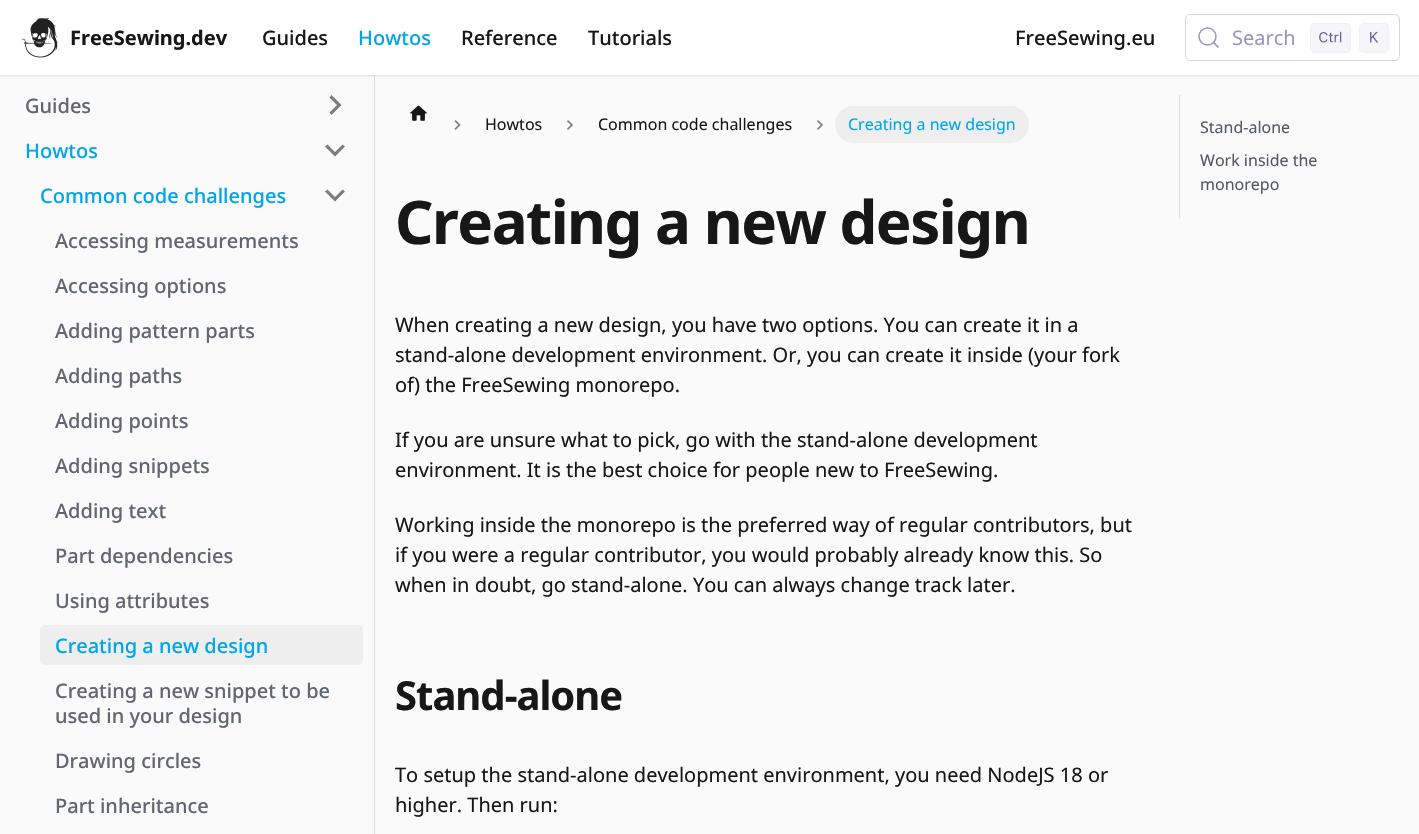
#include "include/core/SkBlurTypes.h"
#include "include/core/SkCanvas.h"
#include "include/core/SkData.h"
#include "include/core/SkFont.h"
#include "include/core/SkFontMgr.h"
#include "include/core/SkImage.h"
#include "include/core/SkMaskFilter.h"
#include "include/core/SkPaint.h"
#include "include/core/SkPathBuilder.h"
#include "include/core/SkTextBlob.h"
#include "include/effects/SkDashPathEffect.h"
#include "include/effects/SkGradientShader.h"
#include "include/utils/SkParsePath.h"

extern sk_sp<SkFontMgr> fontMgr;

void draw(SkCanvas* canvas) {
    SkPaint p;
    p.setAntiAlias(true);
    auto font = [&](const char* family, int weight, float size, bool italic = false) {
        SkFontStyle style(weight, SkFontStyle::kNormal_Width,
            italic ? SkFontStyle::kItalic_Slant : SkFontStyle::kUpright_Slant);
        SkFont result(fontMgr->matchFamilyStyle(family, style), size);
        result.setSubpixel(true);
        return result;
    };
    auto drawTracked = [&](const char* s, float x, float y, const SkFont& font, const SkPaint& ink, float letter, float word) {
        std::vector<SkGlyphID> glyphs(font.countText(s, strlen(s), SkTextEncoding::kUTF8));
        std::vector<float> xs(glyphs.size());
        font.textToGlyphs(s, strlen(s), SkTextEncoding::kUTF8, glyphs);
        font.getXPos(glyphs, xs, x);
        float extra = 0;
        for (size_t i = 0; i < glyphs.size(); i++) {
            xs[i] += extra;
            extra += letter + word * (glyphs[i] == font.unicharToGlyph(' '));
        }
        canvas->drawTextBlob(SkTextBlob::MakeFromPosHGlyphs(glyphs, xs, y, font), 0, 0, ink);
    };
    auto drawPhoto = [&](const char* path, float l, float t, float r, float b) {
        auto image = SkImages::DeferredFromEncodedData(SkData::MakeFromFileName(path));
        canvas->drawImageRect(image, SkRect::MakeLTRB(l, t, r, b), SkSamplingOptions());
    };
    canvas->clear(0xFFFAFAFA);
    p.setColor(0xFFDADDE1);
    canvas->drawRect(SkRect::MakeLTRB(374, 75, 375, 834), p);
    p.setColor(0x1A000000);
    p.setMaskFilter(SkMaskFilter::MakeBlur(kNormal_SkBlurStyle, 1));
    canvas->drawRect(SkRect::MakeLTRB(0, 1, 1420, 76), p);
    p.setMaskFilter(nullptr);
    p.setColor(0xFFFFFFFF);
    canvas->drawRect(SkRect::MakeLTRB(0, 0, 1419, 75), p);
    drawPhoto("media/1.png", 21, 18, 59, 58);
    auto font1 = font("Noto Sans", 700, 20);
    p.setColor(0xFF171717);
    canvas->drawString("FreeSewing.dev", 70, 45, font1, p);
    auto font2 = font("Noto Sans", 500, 20);
    canvas->drawString("Guides", 262, 45, font2, p);
    p.setColor(0xFF00A5EA);
    canvas->drawString("Howtos", 358, 45, font2, p);
    p.setColor(0xFF171717);
    {
        const struct { const char* s; float x, y; } items[] = {
            {"Reference", 461, 45},
            {"Tutorials", 588, 45},
            {"FreeSewing.eu", 1015, 45},
        };
        for (auto [s, x, y] : items) {
            canvas->drawString(s, x, y, font2, p);
        }
    }
    p.setStyle(SkPaint::kStroke_Style);
    p.setStrokeWidth(1);
    p.setColor(0xFFD6D6E7);
    canvas->drawRoundRect(SkRect::MakeLTRB(1185.5f, 14.5f, 1399.5f, 60.5f), 4.5f, 4.5f, p);
    p.setStrokeWidth(1.5f);
    p.setColor(0xFF9698C3);
    canvas->drawCircle(1207.5f, 36.5f, 8.5f, p);
    p.setStrokeWidth(1.7f);
    p.setStrokeCap(SkPaint::kRound_Cap);
    p.setStrokeJoin(SkPaint::kRound_Join);
    canvas->drawPath(SkPathBuilder().moveTo(1218, 47).lineTo(1213.5f, 42.5f).detach(), p);
    auto font3 = font("Noto Sans", 400, 20);
    p.setStyle(SkPaint::kFill_Style);
    canvas->drawString("Search", 1232, 45, font3, p);
    p.setColor(0xFFF5F5FA);
    canvas->drawRoundRect(SkRect::MakeLTRB(1310, 23, 1351, 53), 5, 5, p);
    p.setStyle(SkPaint::kStroke_Style);
    p.setStrokeWidth(1);
    p.setStrokeCap(SkPaint::kButt_Cap);
    p.setStrokeJoin(SkPaint::kMiter_Join);
    p.setColor(0x33D6D6E7);
    canvas->drawRoundRect(SkRect::MakeLTRB(1310.5f, 23.5f, 1350.5f, 52.5f), 4.5f, 4.5f, p);
    drawPhoto("media/2.png", 1319, 31, 1342, 43);
    p.setStyle(SkPaint::kFill_Style);
    p.setColor(0xFFF5F5FA);
    canvas->drawRoundRect(SkRect::MakeLTRB(1359, 23, 1389, 53), 5, 5, p);
    p.setStyle(SkPaint::kStroke_Style);
    p.setColor(0x33D6D6E7);
    canvas->drawRoundRect(SkRect::MakeLTRB(1359.5f, 23.5f, 1388.5f, 52.5f), 4.5f, 4.5f, p);
    drawPhoto("media/3.png", 1370, 31, 1379, 43);
    p.setStyle(SkPaint::kFill_Style);
    p.setColor(0xFF606770);
    canvas->drawString("Guides", 25, 113, font2, p);
    p.setColor(0xFF7D7D7D);
    canvas->drawPath(SkPathBuilder().moveTo(329.5f, 97.5f).lineTo(337, 105).lineTo(329.5f, 112.5f).lineTo(331.5f, 115).lineTo(341.5f, 105).lineTo(331.5f, 95).close().detach(), p);
    p.setColor(0xFF00A5EA);
    canvas->drawString("Howtos", 25, 158, font2, p);
    p.setColor(0xFF7D7D7D);
    canvas->drawPath(SkPathBuilder().moveTo(342.5f, 144.5f).lineTo(335, 152).lineTo(327.5f, 144.5f).lineTo(325, 146.5f).lineTo(335, 156.5f).lineTo(345, 146.5f).close().detach(), p);
    p.setColor(0xFF00A5EA);
    canvas->drawString("Common code challenges", 40, 203, font2, p);
    p.setColor(0xFF7D7D7D);
    canvas->drawPath(SkPathBuilder().moveTo(342.5f, 189.5f).lineTo(335, 197).lineTo(327.5f, 189.5f).lineTo(325, 191.5f).lineTo(335, 201.5f).lineTo(345, 191.5f).close().detach(), p);
    p.setColor(0xFF606770);
    {
        const struct { const char* s; float x, y; } items[] = {
            {"Accessing measurements", 55, 248},
            {"Accessing options", 55, 293},
            {"Adding pattern parts", 55, 338},
            {"Adding paths", 55, 383},
            {"Adding points", 55, 428},
            {"Adding snippets", 55, 473},
            {"Adding text", 55, 518},
            {"Part dependencies", 55, 563},
            {"Using attributes", 55, 608},
        };
        for (auto [s, x, y] : items) {
            canvas->drawString(s, x, y, font2, p);
        }
    }
    p.setColor(0xFFEEEEEE);
    canvas->drawRoundRect(SkRect::MakeLTRB(40, 625, 363, 665), 5, 5, p);
    p.setColor(0xFF00A5EA);
    canvas->drawString("Creating a new design", 55, 653, font2, p);
    p.setColor(0xFF606770);
    {
        const struct { const char* s; float x, y; } items[] = {
            {"Creating a new snippet to be", 55, 698},
            {"used in your design", 55, 723},
            {"Drawing circles", 55, 768},
            {"Part inheritance", 55, 813},
        };
        for (auto [s, x, y] : items) {
            canvas->drawString(s, x, y, font2, p);
        }
    }
    drawPhoto("media/4.png", 410, 105, 427, 121);
    drawPhoto("media/5.png", 454, 120, 461, 130);
    auto font4 = font("Noto Sans", 400, 16);
    p.setColor(0xFF171717);
    canvas->drawString("Howtos", 485, 130, font4, p);
    drawPhoto("media/6.png", 567, 120, 573, 130);
    canvas->drawString("Common code challenges", 598, 130, font4, p);
    drawPhoto("media/6.png", 817, 120, 823, 130);
    p.setColor(0xFFEEEEEE);
    canvas->drawRoundRect(SkRect::MakeLTRB(835, 106, 1029, 143), 18.5f, 18.5f, p);
    p.setColor(0xFF00A5EA);
    canvas->drawString("Creating a new design", 848, 130, font4, p);
    auto font5 = font("Noto Sans", 700, 60);
    p.setColor(0xFF171717);
    drawTracked("Creating a new design", 395, 244, font5, p, -1.5f, 0);
    {
        const struct { const char* s; float x, y; } items[] = {
            {"When creating a new design, you have two options. You can create it in a", 395, 332},
            {"stand-alone development environment. Or, you can create it inside (your fork", 395, 362},
            {"of) the FreeSewing monorepo.", 395, 392},
            {"If you are unsure what to pick, go with the stand-alone development", 395, 447},
            {"environment. It is the best choice for people new to FreeSewing.", 395, 477},
            {"Working inside the monorepo is the preferred way of regular contributors, but", 395, 532},
            {"if you were a regular contributor, you would probably already know this. So", 395, 562},
            {"when in doubt, go stand-alone. You can always change track later.", 395, 592},
        };
        for (auto [s, x, y] : items) {
            canvas->drawString(s, x, y, font3, p);
        }
    }
    auto font6 = font("Noto Sans", 700, 40);
    drawTracked("Stand-alone", 395, 710, font6, p, -1, 0);
    canvas->drawString("To setup the stand-alone development environment, you need NodeJS 18 or", 395, 782, font3, p);
    canvas->drawString("higher. Then run:", 395, 812, font3, p);
    p.setColor(0xFFDADDE1);
    canvas->drawRect(SkRect::MakeLTRB(1179, 95, 1180, 218), p);
    p.setColor(0xFF525860);
    {
        const struct { const char* s; float x, y; } items[] = {
            {"Stand-alone", 1200, 133},
            {"Work inside the", 1200, 166},
            {"monorepo", 1200, 190},
        };
        for (auto [s, x, y] : items) {
            canvas->drawString(s, x, y, font4, p);
        }
    }
}
